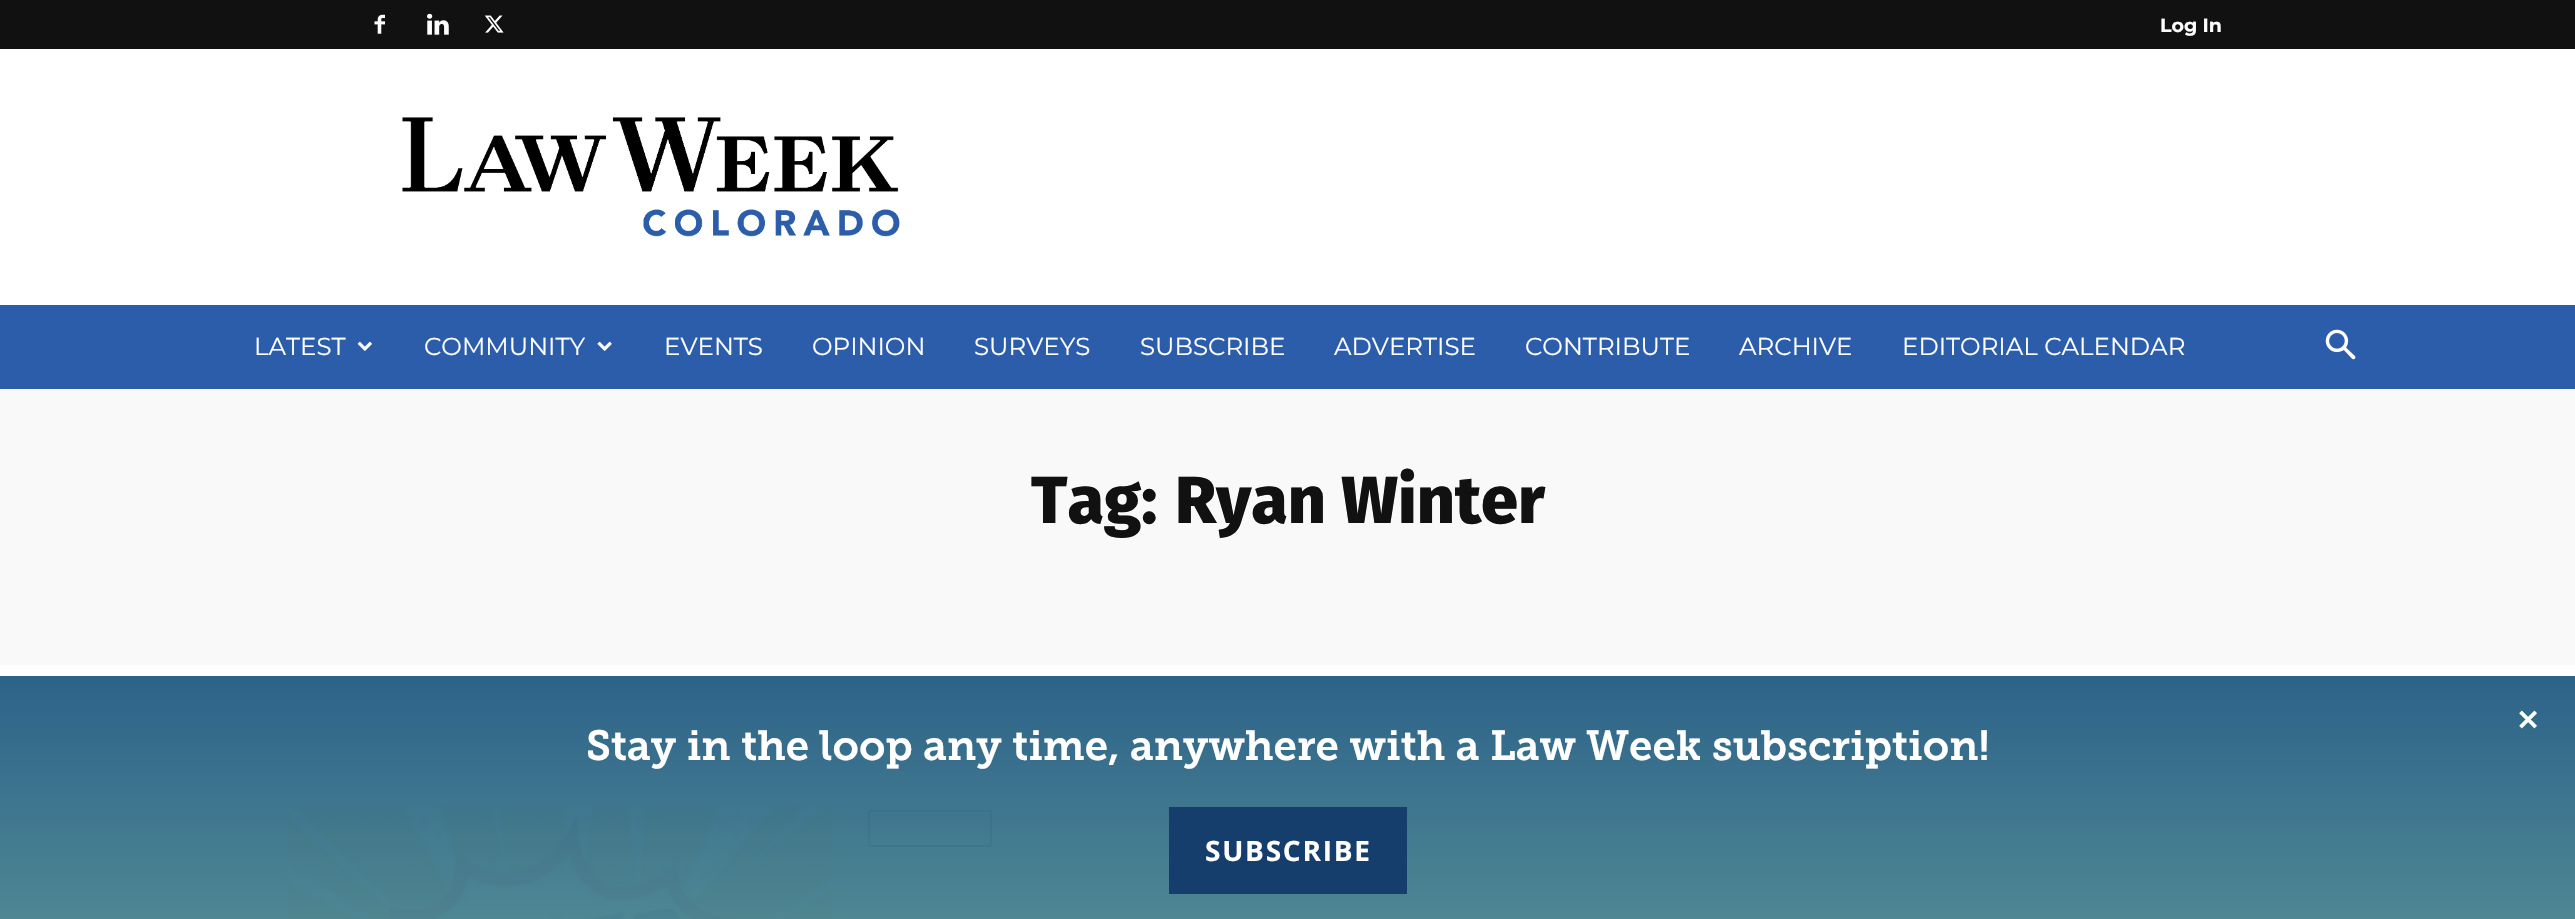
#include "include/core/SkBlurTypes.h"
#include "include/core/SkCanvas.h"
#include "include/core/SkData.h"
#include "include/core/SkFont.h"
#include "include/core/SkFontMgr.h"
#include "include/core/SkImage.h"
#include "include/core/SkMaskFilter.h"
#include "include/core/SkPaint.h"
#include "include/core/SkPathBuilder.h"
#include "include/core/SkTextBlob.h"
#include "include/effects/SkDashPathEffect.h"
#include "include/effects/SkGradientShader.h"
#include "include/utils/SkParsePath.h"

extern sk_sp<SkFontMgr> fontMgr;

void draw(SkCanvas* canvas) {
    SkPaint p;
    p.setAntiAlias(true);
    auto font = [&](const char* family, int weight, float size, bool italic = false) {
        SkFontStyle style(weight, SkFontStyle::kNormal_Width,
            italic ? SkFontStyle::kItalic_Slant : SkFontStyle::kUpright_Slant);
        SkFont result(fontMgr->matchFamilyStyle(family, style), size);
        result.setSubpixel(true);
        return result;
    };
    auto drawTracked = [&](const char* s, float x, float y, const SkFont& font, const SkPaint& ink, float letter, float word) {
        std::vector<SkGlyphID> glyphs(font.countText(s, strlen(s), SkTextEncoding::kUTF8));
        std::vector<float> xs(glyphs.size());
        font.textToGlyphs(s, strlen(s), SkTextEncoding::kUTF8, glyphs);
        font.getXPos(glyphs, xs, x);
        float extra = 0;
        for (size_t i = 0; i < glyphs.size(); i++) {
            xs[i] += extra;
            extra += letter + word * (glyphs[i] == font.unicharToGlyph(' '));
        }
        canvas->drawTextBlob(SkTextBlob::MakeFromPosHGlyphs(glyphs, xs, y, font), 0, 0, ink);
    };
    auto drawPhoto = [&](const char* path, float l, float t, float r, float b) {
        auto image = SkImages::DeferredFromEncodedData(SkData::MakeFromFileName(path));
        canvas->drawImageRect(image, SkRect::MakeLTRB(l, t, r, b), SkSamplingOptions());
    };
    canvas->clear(0xFFFFFFFF);
    p.setColor(0xFF191919);
    canvas->drawRect(SkRect::MakeLTRB(0, 676, 2575, 919), p);
    p.setColor(0xFF111111);
    canvas->drawRect(SkRect::MakeLTRB(0, 0, 2575, 49), p);
    drawPhoto("media/1.png", 374, 14, 385, 34);
    drawPhoto("media/2.png", 427, 13, 449, 35);
    drawPhoto("media/3.png", 484, 15, 504, 33);
    auto font1 = font("Montserrat", 700, 19);
    p.setColor(0xFFFFFFFF);
    canvas->drawString("Log In", 2160, 32, font1, p);
    drawPhoto("media/4.png", 402, 117, 900, 237);
    p.setColor(0xFF2C5DAA);
    canvas->drawRect(SkRect::MakeLTRB(0, 305, 2575, 389), p);
    auto font2 = font("Montserrat", 400, 24.5f);
    p.setColor(0xFFFFFFFF);
    canvas->drawString("LATEST", 254, 355, font2, p);
    drawPhoto("media/5.png", 357, 341, 372, 351);
    canvas->drawString("COMMUNITY", 424, 355, font2, p);
    drawPhoto("media/6.png", 597, 341, 612, 351);
    {
        const struct { const char* s; float x, y; } items[] = {
            {"EVENTS", 664, 355},
            {"OPINION", 812, 355},
            {"SURVEYS", 974, 355},
            {"SUBSCRIBE", 1140, 355},
            {"ADVERTISE", 1334, 355},
            {"CONTRIBUTE", 1525, 355},
            {"ARCHIVE", 1739, 355},
            {"EDITORIAL CALENDAR", 1902, 355},
        };
        for (auto [s, x, y] : items) {
            canvas->drawString(s, x, y, font2, p);
        }
    }
    drawPhoto("media/7.png", 2325, 329, 2356, 360);
    p.setColor(0xFFF9F9F9);
    canvas->drawRect(SkRect::MakeLTRB(0, 389, 2575, 665), p);
    auto font3 = font("Fira Sans", 800, 66.5f);
    p.setColor(0xFF111111);
    canvas->drawString("Tag:", 1031, 523, font3, p);
    canvas->drawString("Ryan Winter", 1175, 523, font3, p);
    drawPhoto("media/8.png", 287, 805, 833, 919);
    p.setStyle(SkPaint::kStroke_Style);
    p.setStrokeWidth(2);
    p.setColor(0xFF000000);
    canvas->drawRect(SkRect::MakeLTRB(869, 811, 991, 846), p);
    p.setStyle(SkPaint::kFill_Style);
    {
        const SkColor colors[] = {0xCC3175A5, 0xCC5CA2B2};
        const float stops[] = {0, 1};
        const SkPoint ends[] = {{1288, 675}, {1288, 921}};
        p.setShader(SkGradientShader::MakeLinear(ends, colors, stops, 2, SkTileMode::kClamp));
        p.setAlpha(255);
    }
    canvas->drawRect(SkRect::MakeLTRB(0, 676, 2575, 919), p);
    auto font4 = font("DejaVu Sans", 700, 28);
    p.setShader(nullptr);
    p.setColor(0xFFFFFFFF);
    drawTracked("✕", 2516, 730, font4, p, 1.75f, 0);
    auto font5 = font("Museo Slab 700", 600, 42);
    canvas->drawString("Stay in the loop any time, anywhere with a Law Week subscription!", 586, 760, font5, p);
    p.setColor(0xFF163E6D);
    canvas->drawRect(SkRect::MakeLTRB(1169, 807, 1407, 894), p);
    auto font6 = font("Open Sans", 700, 28);
    p.setColor(0xFFFFFFFF);
    drawTracked("SUBSCRIBE", 1205, 861, font6, p, 1.75f, 0);
}
